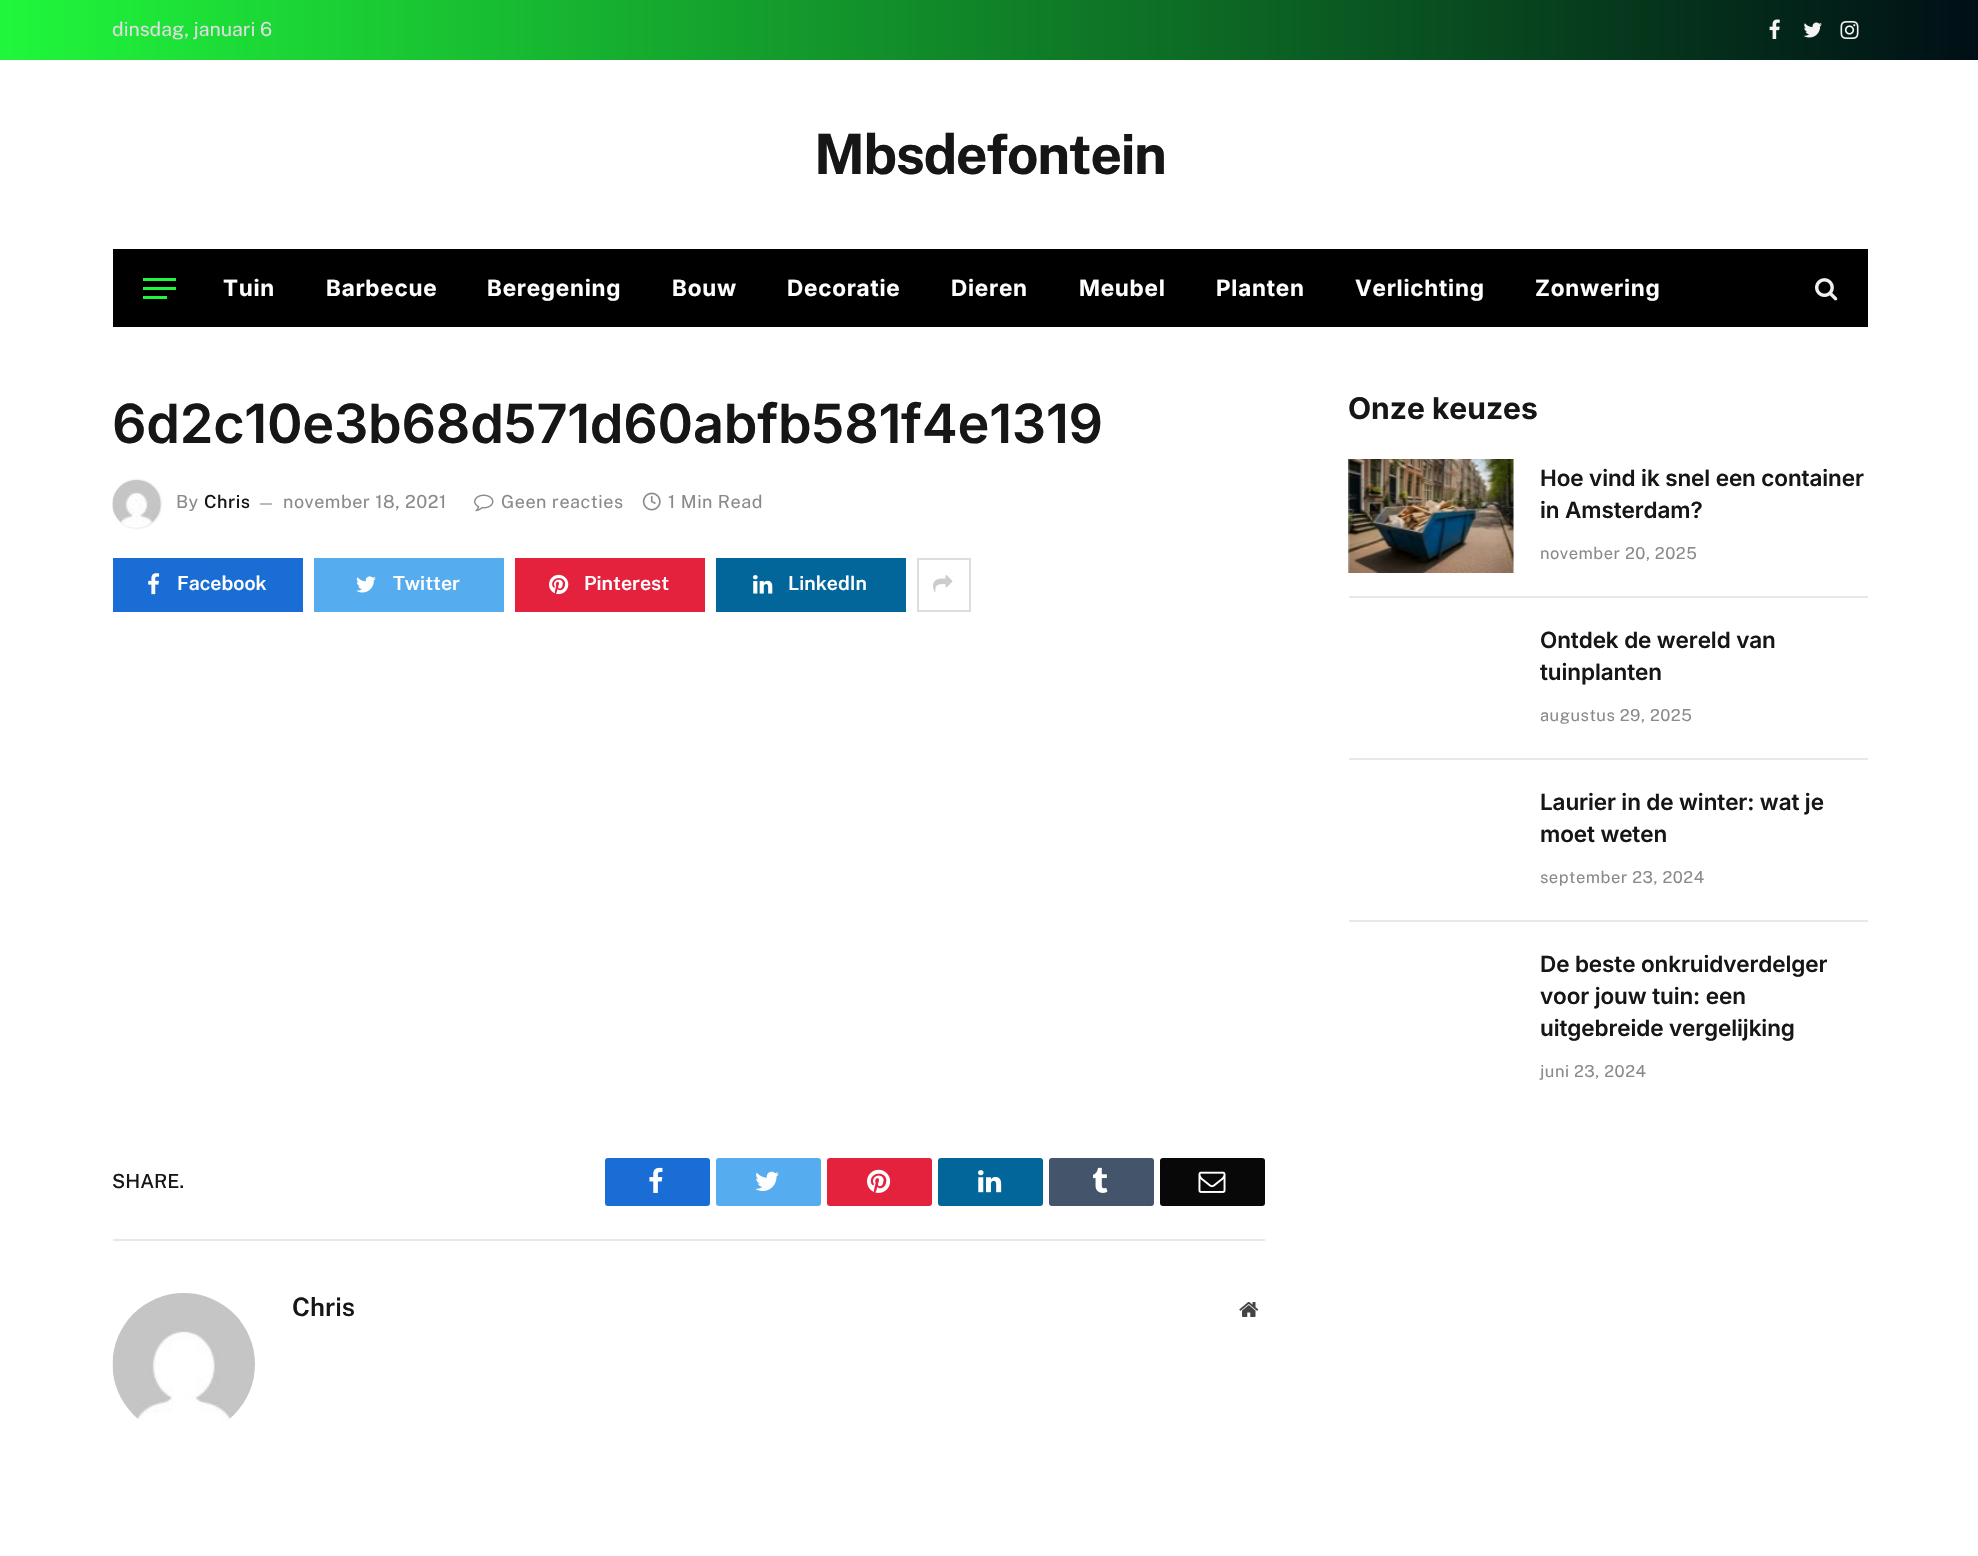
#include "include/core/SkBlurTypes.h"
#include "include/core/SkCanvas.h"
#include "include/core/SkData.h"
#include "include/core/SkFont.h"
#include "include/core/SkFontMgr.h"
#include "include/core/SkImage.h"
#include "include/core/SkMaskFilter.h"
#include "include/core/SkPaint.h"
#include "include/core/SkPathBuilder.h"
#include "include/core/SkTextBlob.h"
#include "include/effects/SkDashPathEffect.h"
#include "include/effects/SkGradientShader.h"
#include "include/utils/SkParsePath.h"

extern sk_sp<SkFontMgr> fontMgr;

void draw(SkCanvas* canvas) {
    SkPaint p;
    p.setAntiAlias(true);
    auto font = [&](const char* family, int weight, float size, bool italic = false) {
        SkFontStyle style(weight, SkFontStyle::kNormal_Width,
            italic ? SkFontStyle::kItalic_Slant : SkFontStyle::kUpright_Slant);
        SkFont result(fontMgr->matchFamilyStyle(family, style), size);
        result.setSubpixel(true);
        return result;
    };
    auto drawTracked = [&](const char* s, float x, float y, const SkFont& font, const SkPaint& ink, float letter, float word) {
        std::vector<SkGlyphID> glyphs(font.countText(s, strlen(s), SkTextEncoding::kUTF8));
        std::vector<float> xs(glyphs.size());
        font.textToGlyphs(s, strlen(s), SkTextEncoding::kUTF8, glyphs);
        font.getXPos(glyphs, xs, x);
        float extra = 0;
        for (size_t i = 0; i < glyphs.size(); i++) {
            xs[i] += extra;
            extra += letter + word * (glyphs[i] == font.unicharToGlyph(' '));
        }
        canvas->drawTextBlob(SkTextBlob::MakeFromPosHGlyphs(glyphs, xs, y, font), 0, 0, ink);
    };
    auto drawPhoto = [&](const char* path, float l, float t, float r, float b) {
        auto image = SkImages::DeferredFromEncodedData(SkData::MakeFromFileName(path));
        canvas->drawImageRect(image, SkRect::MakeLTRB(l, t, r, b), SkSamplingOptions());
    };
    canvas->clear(0xFFFFFFFF);
    {
        const SkColor colors[] = {0xFF20F73B, 0xFF000F16};
        const float stops[] = {0, 1};
        const SkPoint ends[] = {{0, 30}, {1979, 30}};
        p.setShader(SkGradientShader::MakeLinear(ends, colors, stops, 2, SkTileMode::kClamp));
        p.setAlpha(255);
    }
    canvas->drawRect(SkRect::MakeLTRB(0, 0, 1978, 60), p);
    auto font1 = font("Public Sans", 400, 19.5f);
    p.setShader(nullptr);
    p.setColor(0xFFDDDDDD);
    canvas->drawString("dinsdag, januari 6", 112, 36, font1, p);
    drawPhoto("media/1.png", 1769, 19, 1780, 39);
    drawPhoto("media/2.png", 1803, 22, 1822, 38);
    drawPhoto("media/3.png", 1840, 21, 1859, 39);
    auto font2 = font("Public Sans", 700, 55.5f);
    p.setColor(0xFF161616);
    drawTracked("Mbsdefontein", 814, 174, font2, p, -1.5f, 0);
    {
        const struct { float l, t, r, b; SkColor color; } items[] = {
            {113, 249, 1868, 327, 0xFF000000},
            {143, 296, 167, 299, 0xFF20F73B},
            {143, 278, 176, 281, 0xFF20F73B},
            {143, 287, 176, 290, 0xFF20F73B},
        };
        for (auto [l, t, r, b, color] : items) {
            p.setColor(color);
            canvas->drawRect(SkRect::MakeLTRB(l, t, r, b), p);
        }
    }
    auto font3 = font("Inter", 700, 22.5f);
    p.setColor(0xFFFFFFFF);
    {
        const struct { const char* s; float x, y; } items[] = {
            {"Tuin", 223, 296},
            {"Barbecue", 326, 296},
            {"Beregening", 487, 296},
            {"Bouw", 672, 296},
            {"Decoratie", 787, 296},
            {"Dieren", 951, 296},
            {"Meubel", 1079, 296},
            {"Planten", 1216, 296},
            {"Verlichting", 1355, 296},
            {"Zonwering", 1535, 296},
        };
        for (auto [s, x, y] : items) {
            drawTracked(s, x, y, font3, p, 0.75f, 0);
        }
    }
    drawPhoto("media/4.png", 1815, 278, 1838, 301);
    auto font4 = font("Inter", 600, 54);
    p.setColor(0xFF161616);
    drawTracked("6d2c10e3b68d571d60abfb581f4e1319", 112, 443, font4, p, -0.25f, 0);
    p.setColor(0x33000000);
    p.setMaskFilter(SkMaskFilter::MakeBlur(kNormal_SkBlurStyle, 1));
    canvas->drawRoundRect(SkRect::MakeLTRB(113, 480, 161, 528), 24, 24, p);
    p.setMaskFilter(nullptr);
    drawPhoto("media/5.png", 112, 480, 161, 528);
    auto font5 = font("Public Sans", 400, 18);
    p.setColor(0xFF8A8A8A);
    drawTracked("By", 176, 508, font5, p, 0.5f, 0);
    auto font6 = font("Public Sans", 500, 18);
    p.setColor(0xFF161616);
    drawTracked("Chris", 204, 508, font6, p, 0.5f, 0);
    auto font7 = font("Public Sans", 400, 16);
    p.setColor(0xFF8A8A8A);
    drawTracked("—", 257, 508, font7, p, 0.5f, 0);
    drawTracked("november 18, 2021", 283, 508, font5, p, 0.5f, 0);
    drawPhoto("media/6.png", 474, 494, 494, 512);
    drawTracked("Geen reacties", 501, 508, font5, p, 0.5f, 0);
    drawPhoto("media/7.png", 642, 492, 661, 511);
    drawTracked("1 Min Read", 668, 508, font5, p, 0.5f, 0);
    p.setColor(0xFF1A6DD4);
    canvas->drawRect(SkRect::MakeLTRB(113, 558, 303, 612), p);
    drawPhoto("media/8.png", 148, 573, 160, 595);
    auto font8 = font("Public Sans", 600, 19.5f);
    p.setColor(0xFFFFFFFF);
    canvas->drawString("Facebook", 177, 590, font8, p);
    p.setColor(0xFF55ACEF);
    canvas->drawRect(SkRect::MakeLTRB(314, 558, 504, 612), p);
    drawPhoto("media/9.png", 356, 576, 376, 593);
    p.setColor(0xFFFFFFFF);
    canvas->drawString("Twitter", 393, 590, font8, p);
    p.setColor(0xFFE4223E);
    canvas->drawRect(SkRect::MakeLTRB(515, 558, 705, 612), p);
    drawPhoto("media/10.png", 549, 574, 569, 595);
    p.setColor(0xFFFFFFFF);
    canvas->drawString("Pinterest", 584, 590, font8, p);
    p.setColor(0xFF02669A);
    canvas->drawRect(SkRect::MakeLTRB(716, 558, 906, 612), p);
    drawPhoto("media/11.png", 753, 575, 773, 594);
    p.setColor(0xFFFFFFFF);
    canvas->drawString("LinkedIn", 788, 590, font8, p);
    p.setStyle(SkPaint::kStroke_Style);
    p.setStrokeWidth(2);
    p.setColor(0xFFDDDDDD);
    canvas->drawRect(SkRect::MakeLTRB(918, 559, 970, 611), p);
    drawPhoto("media/12.png", 933, 575, 953, 593);
    auto font9 = font("Public Sans", 500, 19.5f);
    p.setStyle(SkPaint::kFill_Style);
    p.setColor(0xFF161616);
    canvas->drawString("SHARE.", 112, 1188, font9, p);
    p.setColor(0xFF1A6DD4);
    canvas->drawRoundRect(SkRect::MakeLTRB(605, 1158, 710, 1206), 3, 3, p);
    drawPhoto("media/13.png", 649, 1167, 663, 1193);
    p.setColor(0xFF55ACEF);
    canvas->drawRoundRect(SkRect::MakeLTRB(716, 1158, 821, 1206), 3, 3, p);
    drawPhoto("media/14.png", 755, 1171, 779, 1191);
    p.setColor(0xFFE4223E);
    canvas->drawRoundRect(SkRect::MakeLTRB(827, 1158, 932, 1206), 3, 3, p);
    drawPhoto("media/15.png", 867, 1169, 891, 1193);
    p.setColor(0xFF02669A);
    canvas->drawRoundRect(SkRect::MakeLTRB(938, 1158, 1043, 1206), 3, 3, p);
    drawPhoto("media/16.png", 978, 1170, 1002, 1193);
    p.setColor(0xFF44546B);
    canvas->drawRoundRect(SkRect::MakeLTRB(1049, 1158, 1154, 1206), 3, 3, p);
    drawPhoto("media/17.png", 1093, 1167, 1108, 1193);
    p.setColor(0xFF080808);
    canvas->drawRoundRect(SkRect::MakeLTRB(1160, 1158, 1265, 1206), 3, 3, p);
    drawPhoto("media/18.png", 1198, 1171, 1226, 1193);
    p.setColor(0xFFE8E8E8);
    canvas->drawRect(SkRect::MakeLTRB(113, 1239, 1265, 1241), p);
    drawPhoto("media/19.png", 112, 1293, 255, 1422);
    auto font10 = font("Public Sans", 600, 25.5f);
    p.setColor(0xFF161616);
    canvas->drawString("Chris", 292, 1316, font10, p);
    drawPhoto("media/20.png", 1239, 1302, 1259, 1317);
    auto font11 = font("Inter", 700, 30);
    canvas->drawString("Onze keuzes", 1348, 419, font11, p);
    drawPhoto("media/21.png", 1348, 459, 1514, 573);
    auto font12 = font("Inter", 600, 22.5f);
    drawTracked("Hoe vind ik snel een container", 1540, 486, font12, p, -0.1f, 0);
    drawTracked("in Amsterdam?", 1540, 518, font12, p, -0.1f, 0);
    auto font13 = font("Public Sans", 400, 16.5f);
    p.setColor(0xFF8A8A8A);
    drawTracked("november 20, 2025", 1540, 559, font13, p, 0.5f, 0);
    p.setColor(0xFFE8E8E8);
    canvas->drawRect(SkRect::MakeLTRB(1349, 596, 1868, 598), p);
    p.setColor(0xFF161616);
    drawTracked("Ontdek de wereld van", 1540, 648, font12, p, -0.1f, 0);
    drawTracked("tuinplanten", 1540, 680, font12, p, -0.1f, 0);
    p.setColor(0xFF8A8A8A);
    drawTracked("augustus 29, 2025", 1540, 721, font13, p, 0.5f, 0);
    p.setColor(0xFFE8E8E8);
    canvas->drawRect(SkRect::MakeLTRB(1349, 758, 1868, 760), p);
    p.setColor(0xFF161616);
    drawTracked("Laurier in de winter: wat je", 1540, 810, font12, p, -0.1f, 0);
    drawTracked("moet weten", 1540, 842, font12, p, -0.1f, 0);
    p.setColor(0xFF8A8A8A);
    drawTracked("september 23, 2024", 1540, 883, font13, p, 0.5f, 0);
    p.setColor(0xFFE8E8E8);
    canvas->drawRect(SkRect::MakeLTRB(1349, 920, 1868, 922), p);
    p.setColor(0xFF161616);
    {
        const struct { const char* s; float x, y; } items[] = {
            {"De beste onkruidverdelger", 1540, 972},
            {"voor jouw tuin: een", 1540, 1004},
            {"uitgebreide vergelijking", 1540, 1036},
        };
        for (auto [s, x, y] : items) {
            drawTracked(s, x, y, font12, p, -0.1f, 0);
        }
    }
    p.setColor(0xFF8A8A8A);
    drawTracked("juni 23, 2024", 1540, 1077, font13, p, 0.5f, 0);
}
